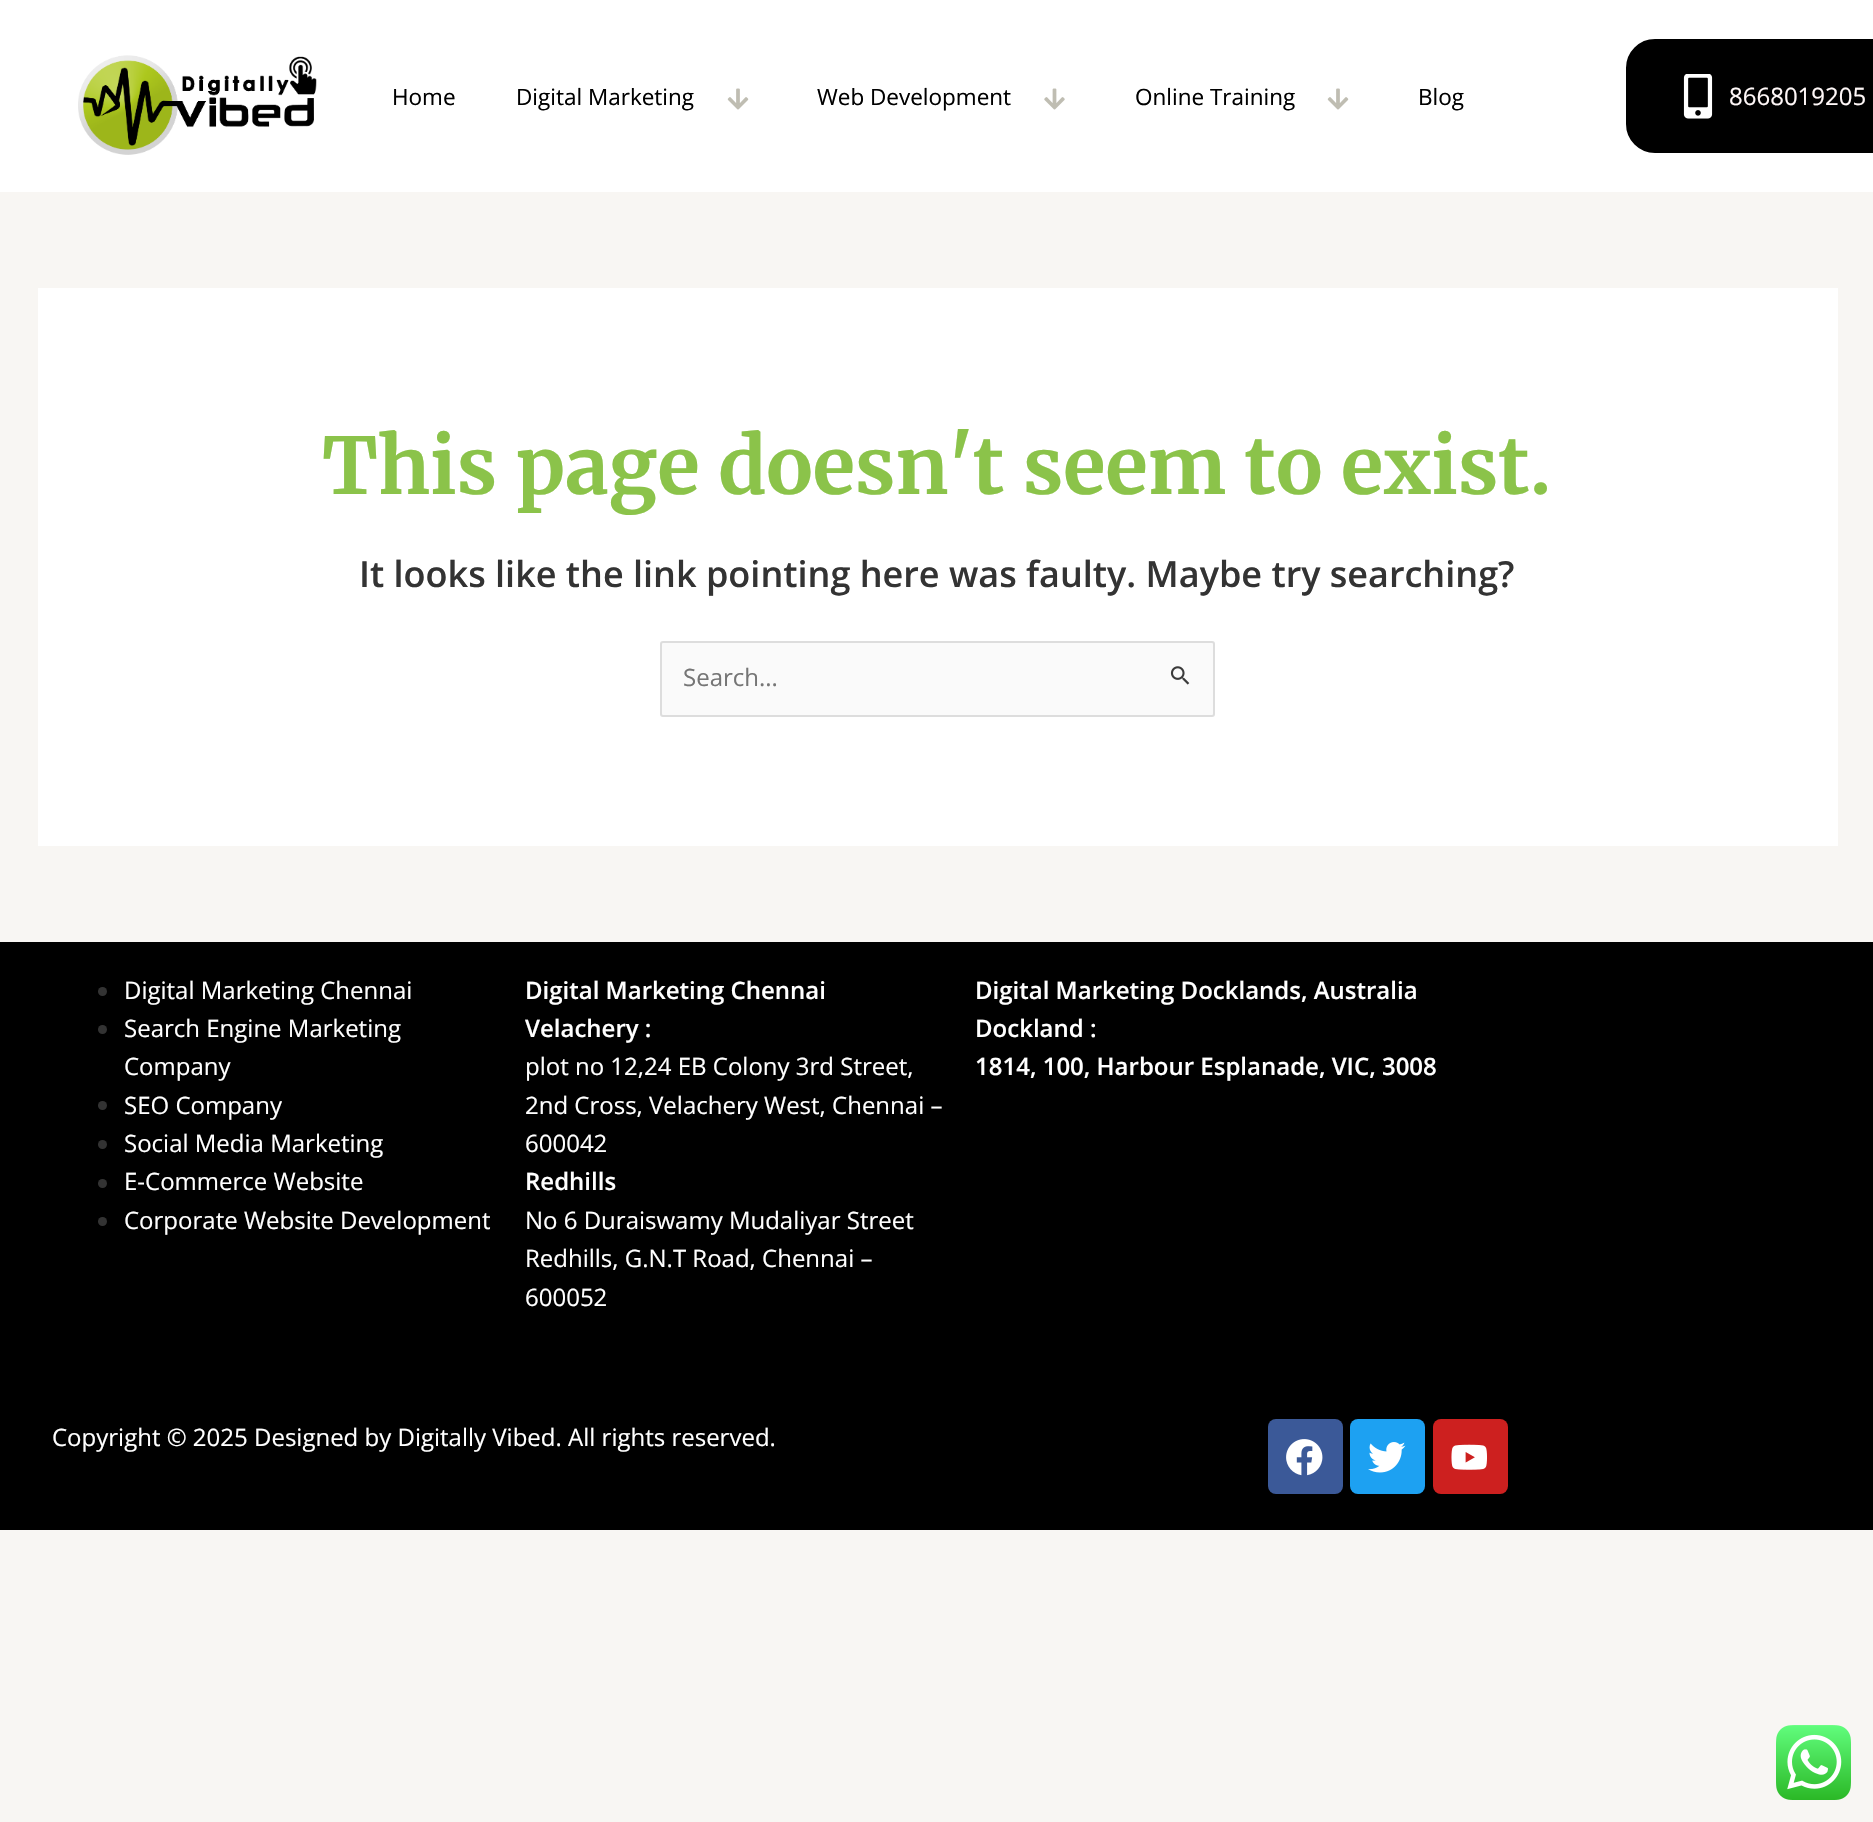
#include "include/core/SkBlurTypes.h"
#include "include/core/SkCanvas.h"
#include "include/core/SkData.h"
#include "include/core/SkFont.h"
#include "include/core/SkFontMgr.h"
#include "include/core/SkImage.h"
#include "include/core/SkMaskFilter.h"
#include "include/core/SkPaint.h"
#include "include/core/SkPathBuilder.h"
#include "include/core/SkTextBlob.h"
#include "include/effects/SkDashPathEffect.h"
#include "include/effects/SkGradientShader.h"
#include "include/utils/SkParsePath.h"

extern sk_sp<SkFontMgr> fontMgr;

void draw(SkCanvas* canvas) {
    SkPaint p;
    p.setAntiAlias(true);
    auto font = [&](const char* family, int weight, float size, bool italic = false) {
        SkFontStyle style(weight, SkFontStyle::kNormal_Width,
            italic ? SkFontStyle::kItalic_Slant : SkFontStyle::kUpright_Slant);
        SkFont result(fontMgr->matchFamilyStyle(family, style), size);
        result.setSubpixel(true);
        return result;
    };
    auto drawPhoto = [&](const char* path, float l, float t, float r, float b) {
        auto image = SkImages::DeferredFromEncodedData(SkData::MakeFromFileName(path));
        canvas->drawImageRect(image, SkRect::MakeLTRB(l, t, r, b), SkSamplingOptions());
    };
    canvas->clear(0xFFF8F6F3);
    p.setColor(0xFFFFFFFF);
    canvas->drawRect(SkRect::MakeLTRB(0, 0, 1873, 192), p);
    drawPhoto("media/1.png", 78, 55, 317, 155);
    auto font1 = font("Open Sans", 400, 22.5f);
    p.setColor(0xFF000000);
    canvas->drawString("Home", 392, 105, font1, p);
    canvas->drawString("Digital Marketing", 516, 105, font1, p);
    drawPhoto("media/2.png", 727, 88, 749, 110);
    canvas->drawString("Web Development", 817, 105, font1, p);
    drawPhoto("media/3.png", 1044, 88, 1065, 110);
    canvas->drawString("Online Training", 1135, 105, font1, p);
    drawPhoto("media/2.png", 1327, 88, 1349, 110);
    canvas->drawString("Blog", 1418, 105, font1, p);
    canvas->drawRoundRect(SkRect::MakeLTRB(1628.5f, 41.5f, 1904.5f, 150.5f), 26.5f, 26.5f, p);
    p.setStyle(SkPaint::kStroke_Style);
    p.setStrokeWidth(5);
    canvas->drawRoundRect(SkRect::MakeLTRB(1628.5f, 41.5f, 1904.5f, 150.5f), 26.5f, 26.5f, p);
    drawPhoto("media/4.png", 1683, 74, 1713, 119);
    auto font2 = font("Open Sans", 400, 24);
    p.setStyle(SkPaint::kFill_Style);
    p.setColor(0xFFFFF8F8);
    canvas->drawString("8668019205", 1729, 105, font2, p);
    p.setColor(0xFFFFFFFF);
    canvas->drawRect(SkRect::MakeLTRB(38, 288, 1838, 846), p);
    auto font3 = font("Merriweather", 300, 78);
    p.setColor(0xFF8BC34A);
    canvas->drawString("This page doesn't seem to exist.", 322, 494, font3, p);
    auto font4 = font("Open Sans", 600, 36);
    p.setColor(0xFF333333);
    canvas->drawString("It looks like the link pointing here was faulty. Maybe try searching?", 359, 587, font4, p);
    p.setColor(0xFFFAFAFA);
    canvas->drawRoundRect(SkRect::MakeLTRB(661, 642, 1214, 716), 2, 2, p);
    p.setStyle(SkPaint::kStroke_Style);
    p.setStrokeWidth(2);
    p.setColor(0xFFDDDDDD);
    canvas->drawRoundRect(SkRect::MakeLTRB(661, 642, 1214, 716), 2, 2, p);
    p.setStyle(SkPaint::kFill_Style);
    p.setColor(0xFF757575);
    canvas->drawString("Search...", 683, 686, font2, p);
    drawPhoto("media/5.png", 1170, 666, 1190, 685);
    p.setColor(0xFF000000);
    canvas->drawRect(SkRect::MakeLTRB(0, 942, 1873, 1530), p);
    p.setColor(0xFF333333);
    canvas->drawCircle(102.5f, 991.5f, 4.5f, p);
    p.setColor(0xFFFFFFFF);
    canvas->drawString("Digital Marketing Chennai", 124, 999, font2, p);
    p.setColor(0xFF333333);
    canvas->drawCircle(102.5f, 1029.5f, 4.5f, p);
    p.setColor(0xFFFFFFFF);
    canvas->drawString("Search Engine Marketing", 124, 1037, font2, p);
    canvas->drawString("Company", 124, 1075, font2, p);
    p.setColor(0xFF333333);
    canvas->drawCircle(102.5f, 1105.5f, 4.5f, p);
    p.setColor(0xFFFFFFFF);
    canvas->drawString("SEO Company", 124, 1114, font2, p);
    p.setColor(0xFF333333);
    canvas->drawCircle(102.5f, 1144.5f, 4.5f, p);
    p.setColor(0xFFFFFFFF);
    canvas->drawString("Social Media Marketing", 124, 1152, font2, p);
    p.setColor(0xFF333333);
    canvas->drawCircle(102.5f, 1183.5f, 4.5f, p);
    p.setColor(0xFFFFFFFF);
    canvas->drawString("E-Commerce Website", 124, 1190, font2, p);
    p.setColor(0xFF333333);
    canvas->drawCircle(102.5f, 1221.5f, 4.5f, p);
    p.setColor(0xFFFFFFFF);
    canvas->drawString("Corporate Website Development", 124, 1229, font2, p);
    auto font5 = font("Open Sans", 600, 24);
    canvas->drawString("Digital Marketing Chennai", 525, 999, font5, p);
    canvas->drawString("Velachery :", 525, 1037, font5, p);
    {
        const struct { const char* s; float x, y; } items[] = {
            {"plot no 12,24 EB Colony 3rd Street,", 525, 1075},
            {"2nd Cross, Velachery West, Chennai –", 525, 1114},
            {"600042", 525, 1152},
        };
        for (auto [s, x, y] : items) {
            canvas->drawString(s, x, y, font2, p);
        }
    }
    canvas->drawString("Redhills", 525, 1190, font5, p);
    {
        const struct { const char* s; float x, y; } items[] = {
            {"No 6 Duraiswamy Mudaliyar Street", 525, 1229},
            {"Redhills, G.N.T Road, Chennai –", 525, 1267},
            {"600052", 525, 1306},
        };
        for (auto [s, x, y] : items) {
            canvas->drawString(s, x, y, font2, p);
        }
    }
    {
        const struct { const char* s; float x, y; } items[] = {
            {"Digital Marketing Docklands, Australia", 975, 999},
            {"Dockland :", 975, 1037},
            {"1814, 100, Harbour Esplanade, VIC, 3008", 975, 1075},
        };
        for (auto [s, x, y] : items) {
            canvas->drawString(s, x, y, font5, p);
        }
    }
    canvas->drawString("Copyright © 2025 Designed by Digitally Vibed. All rights reserved.", 52, 1446, font2, p);
    p.setColor(0xFF3B5998);
    canvas->drawRoundRect(SkRect::MakeLTRB(1268, 1419, 1343, 1494), 8, 8, p);
    drawPhoto("media/6.png", 1286, 1439, 1323, 1476);
    p.setColor(0xFF1DA1F2);
    canvas->drawRoundRect(SkRect::MakeLTRB(1350, 1419, 1425, 1494), 8, 8, p);
    drawPhoto("media/7.png", 1368, 1442, 1406, 1473);
    p.setColor(0xFFCD201F);
    canvas->drawRoundRect(SkRect::MakeLTRB(1433, 1419, 1508, 1494), 8, 8, p);
    drawPhoto("media/8.png", 1451, 1444, 1487, 1470);
    drawPhoto("media/9.png", 1776, 1725, 1851, 1800);
}
